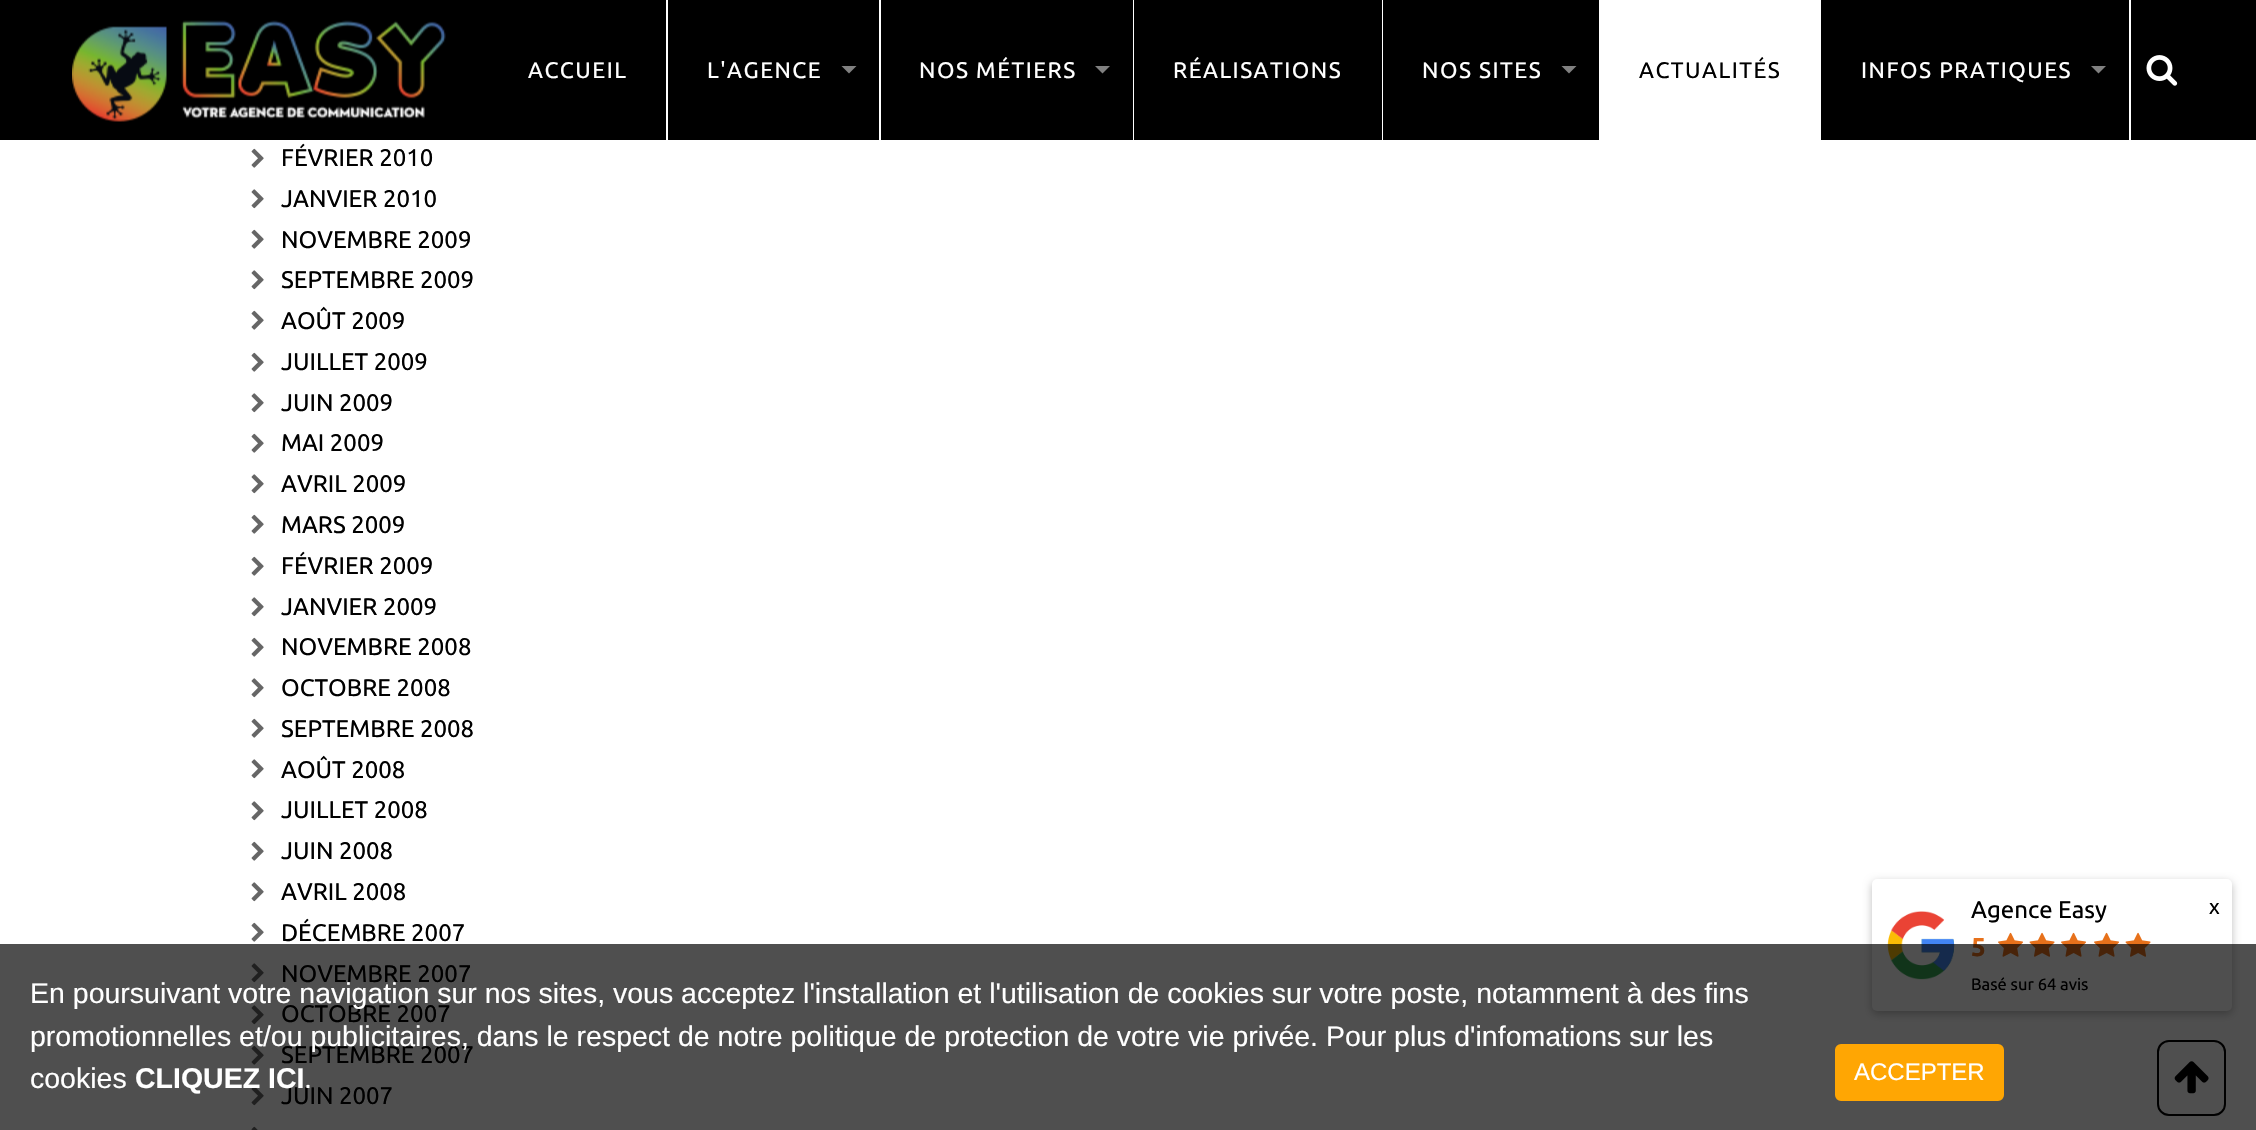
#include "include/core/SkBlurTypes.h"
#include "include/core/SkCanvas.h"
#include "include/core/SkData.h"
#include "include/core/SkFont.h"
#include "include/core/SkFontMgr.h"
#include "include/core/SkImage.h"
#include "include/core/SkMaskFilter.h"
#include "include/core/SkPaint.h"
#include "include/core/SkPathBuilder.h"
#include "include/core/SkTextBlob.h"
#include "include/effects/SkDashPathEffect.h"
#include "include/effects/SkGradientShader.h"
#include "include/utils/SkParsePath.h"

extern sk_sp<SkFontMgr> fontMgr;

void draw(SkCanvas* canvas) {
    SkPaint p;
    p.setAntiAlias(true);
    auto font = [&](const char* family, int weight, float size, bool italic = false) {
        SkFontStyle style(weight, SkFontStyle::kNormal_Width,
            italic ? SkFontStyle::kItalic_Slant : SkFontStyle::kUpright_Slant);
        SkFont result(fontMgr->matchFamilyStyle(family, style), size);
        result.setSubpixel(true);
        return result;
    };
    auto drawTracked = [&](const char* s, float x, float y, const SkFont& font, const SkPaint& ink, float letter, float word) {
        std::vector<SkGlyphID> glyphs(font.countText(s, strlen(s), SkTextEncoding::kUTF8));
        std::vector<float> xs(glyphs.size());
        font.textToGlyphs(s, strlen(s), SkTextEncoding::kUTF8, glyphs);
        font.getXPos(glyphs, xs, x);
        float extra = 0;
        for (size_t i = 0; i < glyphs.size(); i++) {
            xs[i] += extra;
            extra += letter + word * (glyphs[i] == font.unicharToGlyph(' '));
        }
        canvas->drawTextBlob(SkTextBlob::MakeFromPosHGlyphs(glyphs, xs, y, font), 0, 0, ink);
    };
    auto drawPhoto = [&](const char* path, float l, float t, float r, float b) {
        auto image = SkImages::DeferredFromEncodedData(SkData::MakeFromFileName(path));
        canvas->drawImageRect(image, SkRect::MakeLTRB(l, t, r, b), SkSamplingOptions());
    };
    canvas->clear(0xFFFFFFFF);
    p.setColor(0xFF000000);
    canvas->drawRect(SkRect::MakeLTRB(0, 0, 2256, 140), p);
    drawPhoto("media/1.png", 72, 26, 167, 122);
    drawPhoto("media/2.png", 181, 20, 446, 119);
    p.setColor(0xFFFFFFFF);
    canvas->drawRect(SkRect::MakeLTRB(666, 0, 668, 140), p);
    auto font1 = font("Ubuntu", 400, 22.5f);
    drawTracked("ACCUEIL", 528, 78, font1, p, 1.5f, 0);
    canvas->drawRect(SkRect::MakeLTRB(879, 0, 881, 140), p);
    drawTracked("L'AGENCE", 707, 78, font1, p, 1.5f, 0);
    p.setColor(0xFF808080);
    canvas->drawPath(SkPathBuilder().moveTo(841.5f, 66).lineTo(856.5f, 66).lineTo(849, 73.5f).close().detach(), p);
    p.setColor(0xFFFFFFFF);
    canvas->drawRect(SkRect::MakeLTRB(1133, 0, 1134, 140), p);
    drawTracked("NOS MÉTIERS", 919, 78, font1, p, 1.5f, 0);
    p.setColor(0xFF808080);
    canvas->drawPath(SkPathBuilder().moveTo(1095, 66).lineTo(1110, 66).lineTo(1102.5f, 73.5f).close().detach(), p);
    p.setColor(0xFFFFFFFF);
    canvas->drawRect(SkRect::MakeLTRB(1382, 0, 1383, 140), p);
    drawTracked("RÉALISATIONS", 1173, 78, font1, p, 1.5f, 0);
    canvas->drawRect(SkRect::MakeLTRB(1599, 0, 1601, 140), p);
    drawTracked("NOS SITES", 1422, 78, font1, p, 1.5f, 0);
    p.setColor(0xFF808080);
    canvas->drawPath(SkPathBuilder().moveTo(1561.5f, 66).lineTo(1576.5f, 66).lineTo(1569, 73.5f).close().detach(), p);
    p.setColor(0xFFFFFFFF);
    canvas->drawRect(SkRect::MakeLTRB(1601, 0, 1821, 140), p);
    p.setColor(0xFF000000);
    drawTracked("ACTUALITÉS", 1639, 78, font1, p, 1.5f, 0);
    p.setColor(0xFFFFFFFF);
    canvas->drawRect(SkRect::MakeLTRB(2129, 0, 2131, 140), p);
    drawTracked("INFOS PRATIQUES", 1861, 78, font1, p, 1.5f, 0);
    p.setColor(0xFF808080);
    canvas->drawPath(SkPathBuilder().moveTo(2091, 66).lineTo(2106, 66).lineTo(2098.5f, 73.5f).close().detach(), p);
    drawPhoto("media/3.png", 2146, 55, 2178, 86);
    drawPhoto("media/4.png", 251, 148, 264, 168);
    auto font2 = font("Ubuntu", 400, 24);
    p.setColor(0xFF000000);
    canvas->drawString("FÉVRIER 2010", 281, 166, font2, p);
    drawPhoto("media/5.png", 251, 189, 264, 209);
    canvas->drawString("JANVIER 2010", 281, 207, font2, p);
    drawPhoto("media/4.png", 251, 229, 264, 249);
    canvas->drawString("NOVEMBRE 2009", 281, 248, font2, p);
    drawPhoto("media/5.png", 251, 270, 264, 290);
    canvas->drawString("SEPTEMBRE 2009", 281, 288, font2, p);
    drawPhoto("media/4.png", 251, 310, 264, 330);
    canvas->drawString("AOÛT 2009", 281, 329, font2, p);
    drawPhoto("media/4.png", 251, 352, 264, 372);
    canvas->drawString("JUILLET 2009", 281, 370, font2, p);
    drawPhoto("media/5.png", 251, 393, 264, 413);
    canvas->drawString("JUIN 2009", 281, 411, font2, p);
    drawPhoto("media/4.png", 251, 433, 264, 453);
    canvas->drawString("MAI 2009", 281, 451, font2, p);
    drawPhoto("media/5.png", 251, 474, 264, 494);
    canvas->drawString("AVRIL 2009", 281, 492, font2, p);
    drawPhoto("media/4.png", 251, 514, 264, 534);
    canvas->drawString("MARS 2009", 281, 533, font2, p);
    drawPhoto("media/4.png", 251, 556, 264, 576);
    canvas->drawString("FÉVRIER 2009", 281, 574, font2, p);
    drawPhoto("media/5.png", 251, 597, 264, 617);
    canvas->drawString("JANVIER 2009", 281, 615, font2, p);
    drawPhoto("media/4.png", 251, 637, 264, 657);
    canvas->drawString("NOVEMBRE 2008", 281, 655, font2, p);
    drawPhoto("media/5.png", 251, 678, 264, 698);
    canvas->drawString("OCTOBRE 2008", 281, 696, font2, p);
    drawPhoto("media/4.png", 251, 718, 264, 738);
    canvas->drawString("SEPTEMBRE 2008", 281, 737, font2, p);
    drawPhoto("media/5.png", 251, 759, 264, 779);
    canvas->drawString("AOÛT 2008", 281, 778, font2, p);
    drawPhoto("media/5.png", 251, 801, 264, 821);
    canvas->drawString("JUILLET 2008", 281, 818, font2, p);
    drawPhoto("media/4.png", 251, 841, 264, 861);
    canvas->drawString("JUIN 2008", 281, 859, font2, p);
    drawPhoto("media/5.png", 251, 882, 264, 902);
    canvas->drawString("AVRIL 2008", 281, 900, font2, p);
    drawPhoto("media/4.png", 251, 922, 264, 942);
    canvas->drawString("DÉCEMBRE 2007", 281, 941, font2, p);
    drawPhoto("media/5.png", 251, 963, 264, 983);
    canvas->drawString("NOVEMBRE 2007", 281, 982, font2, p);
    drawPhoto("media/5.png", 251, 1005, 264, 1025);
    canvas->drawString("OCTOBRE 2007", 281, 1022, font2, p);
    drawPhoto("media/4.png", 251, 1045, 264, 1065);
    canvas->drawString("SEPTEMBRE 2007", 281, 1063, font2, p);
    drawPhoto("media/5.png", 251, 1086, 264, 1106);
    canvas->drawString("JUIN 2007", 281, 1104, font2, p);
    drawPhoto("media/6.png", 251, 1126, 258, 1130);
    p.setColor(0x42000000);
    p.setMaskFilter(SkMaskFilter::MakeBlur(kNormal_SkBlurStyle, 4));
    canvas->drawRoundRect(SkRect::MakeLTRB(1872, 882, 2232, 1014), 5, 5, p);
    p.setMaskFilter(nullptr);
    p.setColor(0xFFFFFFFF);
    canvas->drawRoundRect(SkRect::MakeLTRB(1872, 879, 2232, 1011), 5, 5, p);
    drawPhoto("media/7.png", 1887, 911, 1955, 980);
    p.setColor(0xFF000000);
    canvas->drawString("Agence Easy", 1971, 918, font2, p);
    auto font3 = font("Ubuntu", 700, 26);
    p.setColor(0xFFE7711B);
    canvas->drawString("5", 1971, 956, font3, p);
    drawPhoto("media/8.png", 1998, 932, 2023, 957);
    drawPhoto("media/9.png", 2029, 932, 2055, 957);
    drawPhoto("media/8.png", 2061, 932, 2086, 957);
    drawPhoto("media/8.png", 2094, 932, 2119, 957);
    drawPhoto("media/9.png", 2125, 932, 2151, 957);
    auto font4 = font("Ubuntu", 400, 16.5f);
    p.setColor(0xFF000000);
    canvas->drawString("Basé sur 64 avis", 1971, 990, font4, p);
    auto font5 = font("Ubuntu", 400, 21);
    canvas->drawString("x", 2209, 914, font5, p);
    p.setStyle(SkPaint::kStroke_Style);
    p.setStrokeWidth(2);
    canvas->drawRoundRect(SkRect::MakeLTRB(2158, 1041, 2225, 1115), 11, 11, p);
    drawPhoto("media/10.png", 2174, 1061, 2209, 1094);
    p.setStyle(SkPaint::kFill_Style);
    p.setColor(0xB0000000);
    canvas->drawRect(SkRect::MakeLTRB(0, 944, 2256, 1130), p);
    auto font6 = font("Liberation Sans", 400, 28.5f);
    p.setColor(0xFFFFFFFF);
    {
        const struct { const char* s; float x, y; } items[] = {
            {"En poursuivant votre navigation sur nos sites, vous acceptez l'installation et l'utilisation de cookies sur votre poste, notamment à des fins", 30, 1003},
            {"promotionnelles et/ou publicitaires, dans le respect de notre politique de protection de votre vie privée. Pour plus d'infomations sur les", 30, 1046},
            {"cookies", 30, 1088},
        };
        for (auto [s, x, y] : items) {
            canvas->drawString(s, x, y, font6, p);
        }
    }
    auto font7 = font("Liberation Sans", 700, 28.5f);
    canvas->drawString("CLIQUEZ ICI", 135, 1088, font7, p);
    canvas->drawString(".", 304, 1088, font6, p);
    p.setColor(0xFFFFA603);
    canvas->drawRoundRect(SkRect::MakeLTRB(1836, 1045, 2003, 1100), 5, 5, p);
    p.setStyle(SkPaint::kStroke_Style);
    canvas->drawRoundRect(SkRect::MakeLTRB(1836, 1045, 2003, 1100), 5, 5, p);
    auto font8 = font("Liberation Sans", 400, 24);
    p.setStyle(SkPaint::kFill_Style);
    p.setColor(0xFFFFFFFF);
    canvas->drawString("ACCEPTER", 1854, 1080, font8, p);
}
